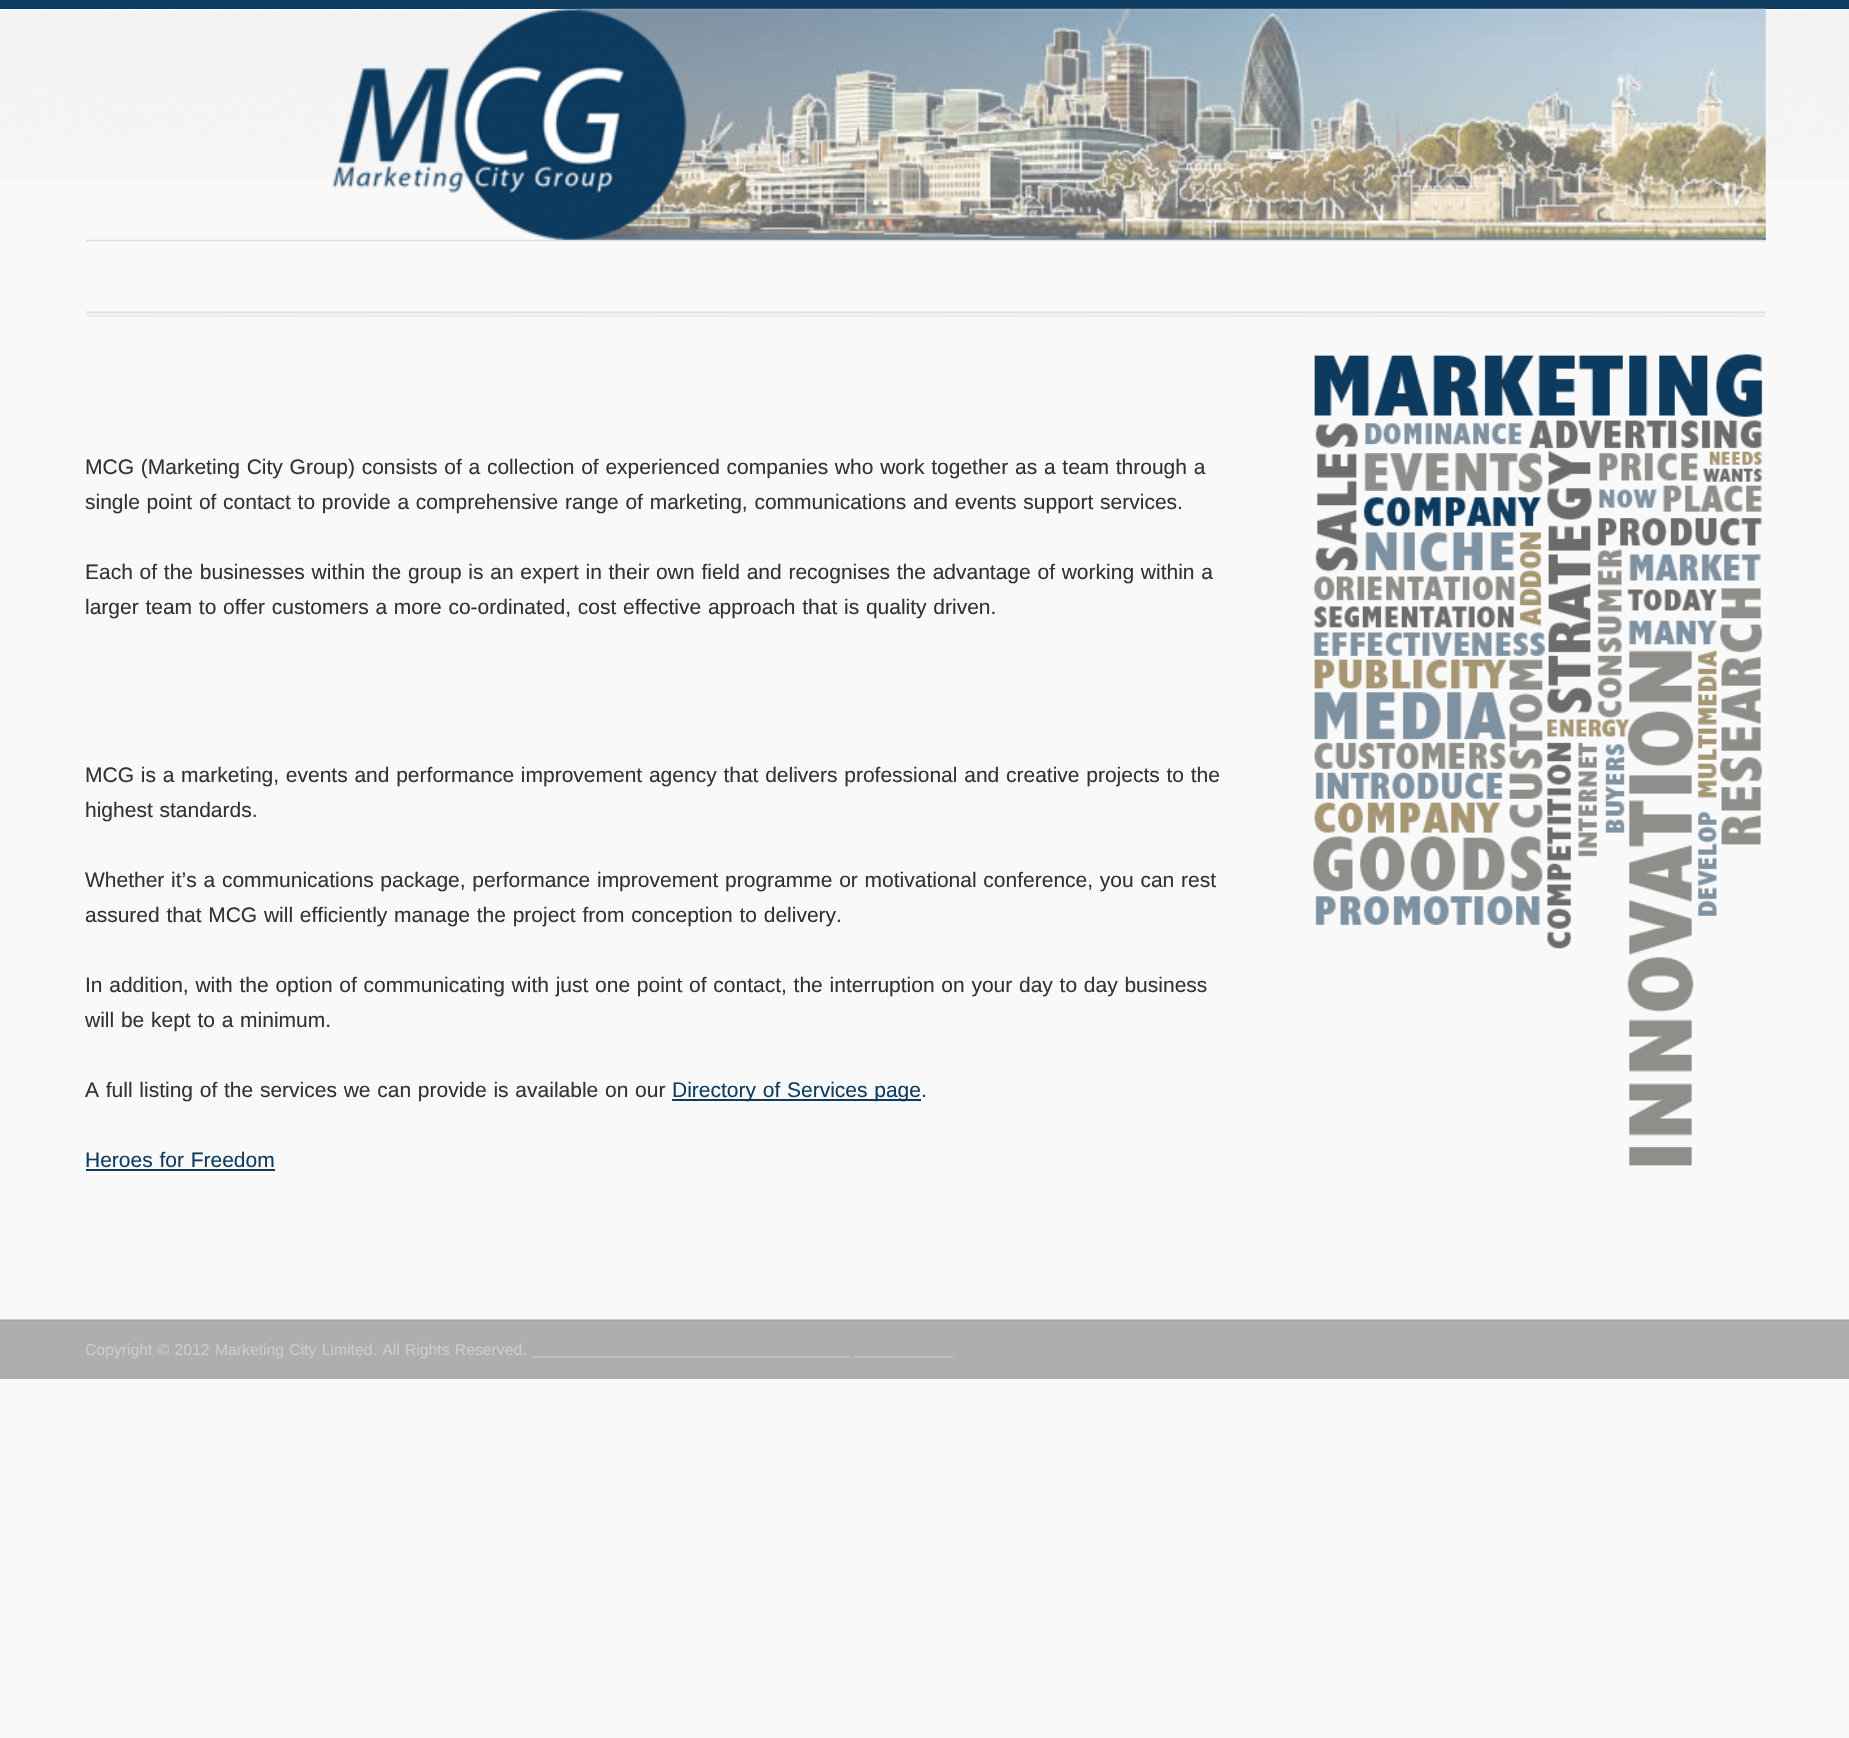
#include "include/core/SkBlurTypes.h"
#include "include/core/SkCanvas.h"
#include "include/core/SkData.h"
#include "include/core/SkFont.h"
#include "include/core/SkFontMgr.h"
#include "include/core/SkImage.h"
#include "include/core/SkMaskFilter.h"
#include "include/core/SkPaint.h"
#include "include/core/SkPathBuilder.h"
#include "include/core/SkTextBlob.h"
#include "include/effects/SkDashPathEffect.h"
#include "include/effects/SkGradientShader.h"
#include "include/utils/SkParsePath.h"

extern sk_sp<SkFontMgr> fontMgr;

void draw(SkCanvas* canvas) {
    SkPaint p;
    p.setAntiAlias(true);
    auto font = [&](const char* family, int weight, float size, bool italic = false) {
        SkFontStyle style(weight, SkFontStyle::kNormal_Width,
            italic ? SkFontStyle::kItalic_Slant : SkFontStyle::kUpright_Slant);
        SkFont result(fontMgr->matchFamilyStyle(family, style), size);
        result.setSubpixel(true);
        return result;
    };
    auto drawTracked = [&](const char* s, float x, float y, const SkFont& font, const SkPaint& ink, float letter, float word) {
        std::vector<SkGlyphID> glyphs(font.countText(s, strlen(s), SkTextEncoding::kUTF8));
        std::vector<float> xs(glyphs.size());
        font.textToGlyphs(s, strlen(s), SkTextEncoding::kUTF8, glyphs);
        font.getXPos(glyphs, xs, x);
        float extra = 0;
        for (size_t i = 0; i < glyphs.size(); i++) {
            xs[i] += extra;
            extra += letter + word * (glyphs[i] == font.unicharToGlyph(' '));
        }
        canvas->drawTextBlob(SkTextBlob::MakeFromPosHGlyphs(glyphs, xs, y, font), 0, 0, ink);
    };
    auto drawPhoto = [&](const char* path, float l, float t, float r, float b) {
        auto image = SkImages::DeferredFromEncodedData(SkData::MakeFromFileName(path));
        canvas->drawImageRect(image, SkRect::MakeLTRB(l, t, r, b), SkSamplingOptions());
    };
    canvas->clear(0xFFF9F9F9);
    drawPhoto("media/1.png", 0, 9, 1849, 178);
    p.setColor(0xFF0E3C60);
    canvas->drawRect(SkRect::MakeLTRB(0, 0, 1849, 9), p);
    drawPhoto("media/2.png", 332, 8, 1766, 240);
    drawPhoto("media/3.png", 85, 239, 1766, 317);
    auto font1 = font("Liberation Sans", 400, 21);
    p.setColor(0xFF333333);
    {
        const struct { const char* s; float x, y; } items[] = {
            {"MCG (Marketing City Group) consists of a collection of experienced companies who work together as a team through a", 85, 474},
            {"single point of contact to provide a comprehensive range of marketing, communications and events support services.", 85, 509},
            {"Each of the businesses within the group is an expert in their own field and recognises the advantage of working within a", 85, 579},
            {"larger team to offer customers a more co-ordinated, cost effective approach that is quality driven.", 85, 614},
            {"MCG is a marketing, events and performance improvement agency that delivers professional and creative projects to the", 85, 782},
            {"highest standards.", 85, 817},
            {"Whether it’s a communications package, performance improvement programme or motivational conference, you can rest", 85, 887},
            {"assured that MCG will efficiently manage the project from conception to delivery.", 85, 922},
            {"In addition, with the option of communicating with just one point of contact, the interruption on your day to day business", 85, 992},
            {"will be kept to a minimum.", 85, 1027},
            {"A full listing of the services we can provide is available on our", 85, 1097},
        };
        for (auto [s, x, y] : items) {
            drawTracked(s, x, y, font1, p, 0, 0.9f);
        }
    }
    p.setColor(0xFF0E3C60);
    canvas->drawRect(SkRect::MakeLTRB(672, 1099, 921, 1101), p);
    drawTracked("Directory of Services page", 672, 1097, font1, p, 0, 0.9f);
    p.setColor(0xFF333333);
    canvas->drawString(".", 921, 1097, font1, p);
    p.setColor(0xFF0E3C60);
    drawTracked("Heroes for Freedom", 85, 1167, font1, p, 0, 0.9f);
    canvas->drawRect(SkRect::MakeLTRB(86, 1169, 275, 1171), p);
    drawPhoto("media/4.png", 1313, 354, 1763, 1166);
    drawPhoto("media/5.png", 0, 1319, 1849, 1379);
    canvas->save();
    canvas->clipRect(SkRect::MakeLTRB(86, 1318, 1766, 1379));
    auto font2 = font("Liberation Sans", 400, 15.75f);
    p.setColor(0xFFCCCCCC);
    drawTracked("Copyright © 2012 Marketing City Limited. All Rights Reserved.", 85, 1355, font2, p, 0, 0.9f);
    canvas->restore();
    p.setColor(0xFFBDBDBD);
    canvas->drawRect(SkRect::MakeLTRB(532, 1356, 849, 1358), p);
    canvas->drawRect(SkRect::MakeLTRB(854, 1356, 954, 1358), p);
}
